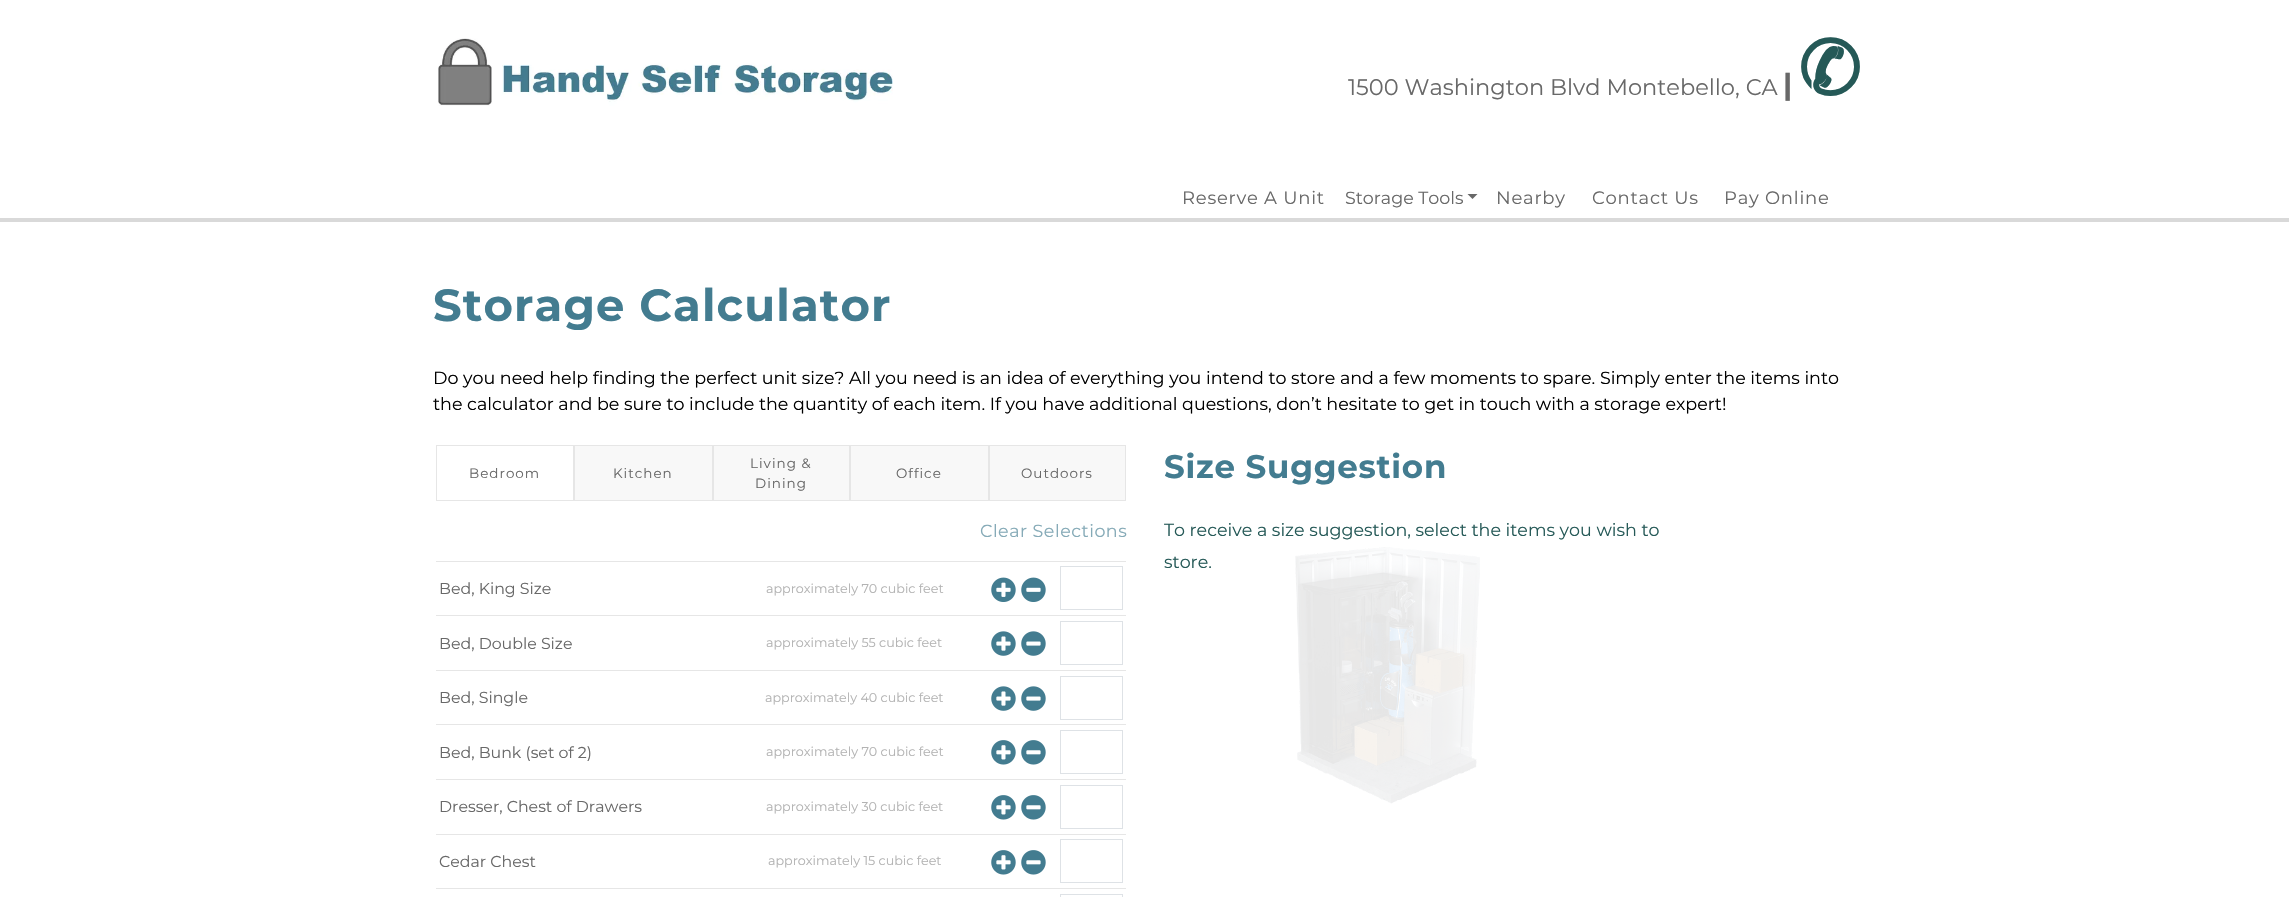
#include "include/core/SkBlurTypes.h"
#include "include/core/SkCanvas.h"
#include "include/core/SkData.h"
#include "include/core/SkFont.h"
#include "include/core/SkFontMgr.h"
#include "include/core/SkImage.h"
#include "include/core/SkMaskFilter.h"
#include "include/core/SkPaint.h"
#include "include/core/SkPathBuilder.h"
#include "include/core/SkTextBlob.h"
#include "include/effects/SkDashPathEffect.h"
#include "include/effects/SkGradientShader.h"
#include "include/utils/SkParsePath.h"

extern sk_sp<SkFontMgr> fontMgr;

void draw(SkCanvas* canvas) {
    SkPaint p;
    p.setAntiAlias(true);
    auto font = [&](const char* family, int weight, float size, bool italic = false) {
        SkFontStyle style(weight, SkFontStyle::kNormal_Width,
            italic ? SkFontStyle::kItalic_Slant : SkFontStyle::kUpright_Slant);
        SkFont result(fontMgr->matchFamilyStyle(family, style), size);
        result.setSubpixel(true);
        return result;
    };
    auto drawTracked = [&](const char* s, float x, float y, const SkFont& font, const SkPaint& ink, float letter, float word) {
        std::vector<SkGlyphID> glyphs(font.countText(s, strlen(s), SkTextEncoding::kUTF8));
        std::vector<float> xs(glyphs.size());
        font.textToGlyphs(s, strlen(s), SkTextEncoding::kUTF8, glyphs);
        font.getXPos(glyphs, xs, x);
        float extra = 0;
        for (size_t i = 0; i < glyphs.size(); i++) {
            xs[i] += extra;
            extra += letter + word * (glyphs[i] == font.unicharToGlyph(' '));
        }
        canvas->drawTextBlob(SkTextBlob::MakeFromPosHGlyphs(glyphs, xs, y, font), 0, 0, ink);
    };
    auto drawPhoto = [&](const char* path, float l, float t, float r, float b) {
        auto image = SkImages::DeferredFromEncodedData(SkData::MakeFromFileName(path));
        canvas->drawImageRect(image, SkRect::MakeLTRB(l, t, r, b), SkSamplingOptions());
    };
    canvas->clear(0xFFFFFFFF);
    drawPhoto("media/1.png", 438, 38, 893, 106);
    auto font1 = font("Montserrat", 400, 22.5f);
    p.setColor(0xFF686868);
    canvas->drawString("1500 Washington Blvd Montebello, CA", 1348, 95, font1, p);
    auto font2 = font("Montserrat", 700, 30);
    canvas->drawString("|", 1783, 95, font2, p);
    auto font3 = font("DejaVu Sans", 700, 75);
    p.setColor(0xFF255957);
    canvas->drawString("✆", 1798, 95, font3, p);
    p.setColor(0xFFD9D9D9);
    canvas->drawRect(SkRect::MakeLTRB(0, 218, 2289, 222), p);
    auto font4 = font("Montserrat", 400, 18);
    p.setColor(0xFF686868);
    drawTracked("Reserve A Unit", 1182, 204, font4, p, 0.75f, 0);
    auto font5 = font("Montserrat", 400, 17.5f);
    canvas->drawString("Storage Tools", 1345, 204, font5, p);
    canvas->drawPath(SkPathBuilder().moveTo(1467.5f, 194).lineTo(1477.5f, 194).lineTo(1472.5f, 199).close().detach(), p);
    {
        const struct { const char* s; float x, y; } items[] = {
            {"Nearby", 1496, 204},
            {"Contact Us", 1592, 204},
            {"Pay Online", 1724, 204},
        };
        for (auto [s, x, y] : items) {
            drawTracked(s, x, y, font4, p, 0.75f, 0);
        }
    }
    auto font6 = font("Montserrat", 700, 45);
    p.setColor(0xFF437C90);
    drawTracked("Storage Calculator", 433, 321, font6, p, 1.1f, 0);
    p.setColor(0xFF000000);
    canvas->drawString("Do you need help finding the perfect unit size? All you need is an idea of everything you intend to store and a few moments to spare. Simply enter the items into", 433, 384, font5, p);
    canvas->drawString("the calculator and be sure to include the quantity of each item. If you have additional questions, don’t hesitate to get in touch with a storage expert!", 433, 410, font5, p);
    p.setStyle(SkPaint::kStroke_Style);
    p.setStrokeWidth(1);
    p.setColor(0xFFE6E6E6);
    canvas->drawRect(SkRect::MakeLTRB(436.5f, 445.5f, 573.5f, 500.5f), p);
    auto font7 = font("Montserrat", 400, 13.5f);
    p.setStyle(SkPaint::kFill_Style);
    p.setColor(0xFF686868);
    drawTracked("Bedroom", 469, 478, font7, p, 1, 0);
    p.setColor(0xFFF8F8F8);
    canvas->drawRect(SkRect::MakeLTRB(574.5f, 445.5f, 712.5f, 500.5f), p);
    p.setStyle(SkPaint::kStroke_Style);
    p.setColor(0xFFE6E6E6);
    canvas->drawRect(SkRect::MakeLTRB(574.5f, 445.5f, 712.5f, 500.5f), p);
    p.setStyle(SkPaint::kFill_Style);
    p.setColor(0xFF686868);
    drawTracked("Kitchen", 613, 478, font7, p, 1, 0);
    p.setColor(0xFFF8F8F8);
    canvas->drawRect(SkRect::MakeLTRB(713.5f, 445.5f, 849.5f, 500.5f), p);
    p.setStyle(SkPaint::kStroke_Style);
    p.setColor(0xFFE6E6E6);
    canvas->drawRect(SkRect::MakeLTRB(713.5f, 445.5f, 849.5f, 500.5f), p);
    p.setStyle(SkPaint::kFill_Style);
    p.setColor(0xFF686868);
    drawTracked("Living &", 750, 468, font7, p, 1, 0);
    drawTracked("Dining", 755, 488, font7, p, 1, 0);
    p.setColor(0xFFF8F8F8);
    canvas->drawRect(SkRect::MakeLTRB(850.5f, 445.5f, 988.5f, 500.5f), p);
    p.setStyle(SkPaint::kStroke_Style);
    p.setColor(0xFFE6E6E6);
    canvas->drawRect(SkRect::MakeLTRB(850.5f, 445.5f, 988.5f, 500.5f), p);
    p.setStyle(SkPaint::kFill_Style);
    p.setColor(0xFF686868);
    drawTracked("Office", 896, 478, font7, p, 1, 0);
    p.setColor(0xFFF8F8F8);
    canvas->drawRect(SkRect::MakeLTRB(989.5f, 445.5f, 1125.5f, 500.5f), p);
    p.setStyle(SkPaint::kStroke_Style);
    p.setColor(0xFFE6E6E6);
    canvas->drawRect(SkRect::MakeLTRB(989.5f, 445.5f, 1125.5f, 500.5f), p);
    p.setStyle(SkPaint::kFill_Style);
    p.setColor(0xFF686868);
    drawTracked("Outdoors", 1021, 478, font7, p, 1, 0);
    p.setColor(0xFF85AAB7);
    drawTracked("Clear Selections", 980, 537, font5, p, 0.5f, 0);
    p.setColor(0xFFE6E6E6);
    canvas->drawRect(SkRect::MakeLTRB(436, 561, 1126, 562), p);
    auto font8 = font("Montserrat", 400, 15.8f);
    p.setColor(0xFF686868);
    canvas->drawString("Bed, King Size", 439, 594, font8, p);
    auto font9 = font("Montserrat", 400, 12.7f);
    p.setColor(0xFFB3B3B3);
    canvas->drawString("approximately 70 cubic feet", 766, 593, font9, p);
    drawPhoto("media/2.png", 991, 577, 1016, 602);
    drawPhoto("media/3.png", 1021, 577, 1046, 602);
    p.setStyle(SkPaint::kStroke_Style);
    p.setColor(0xFFDEE2E6);
    canvas->drawRect(SkRect::MakeLTRB(1060.5f, 566.5f, 1122.5f, 609.5f), p);
    p.setStyle(SkPaint::kFill_Style);
    p.setColor(0xFFE6E6E6);
    canvas->drawRect(SkRect::MakeLTRB(436, 615, 1126, 616), p);
    p.setColor(0xFF686868);
    canvas->drawString("Bed, Double Size", 439, 649, font8, p);
    p.setColor(0xFFB3B3B3);
    canvas->drawString("approximately 55 cubic feet", 766, 647, font9, p);
    drawPhoto("media/4.png", 991, 631, 1016, 656);
    drawPhoto("media/5.png", 1021, 631, 1046, 656);
    p.setStyle(SkPaint::kStroke_Style);
    p.setColor(0xFFDEE2E6);
    canvas->drawRect(SkRect::MakeLTRB(1060.5f, 621.5f, 1122.5f, 664.5f), p);
    p.setStyle(SkPaint::kFill_Style);
    p.setColor(0xFFE6E6E6);
    canvas->drawRect(SkRect::MakeLTRB(436, 670, 1126, 671), p);
    p.setColor(0xFF686868);
    canvas->drawString("Bed, Single", 439, 703, font8, p);
    p.setColor(0xFFB3B3B3);
    canvas->drawString("approximately 40 cubic feet", 765, 702, font9, p);
    drawPhoto("media/4.png", 991, 686, 1016, 711);
    drawPhoto("media/5.png", 1021, 686, 1046, 711);
    p.setStyle(SkPaint::kStroke_Style);
    p.setColor(0xFFDEE2E6);
    canvas->drawRect(SkRect::MakeLTRB(1060.5f, 676.5f, 1122.5f, 719.5f), p);
    p.setStyle(SkPaint::kFill_Style);
    p.setColor(0xFFE6E6E6);
    canvas->drawRect(SkRect::MakeLTRB(436, 724, 1126, 725), p);
    p.setColor(0xFF686868);
    canvas->drawString("Bed, Bunk (set of 2)", 439, 758, font8, p);
    p.setColor(0xFFB3B3B3);
    canvas->drawString("approximately 70 cubic feet", 766, 756, font9, p);
    drawPhoto("media/6.png", 991, 740, 1016, 765);
    drawPhoto("media/7.png", 1021, 740, 1046, 765);
    p.setStyle(SkPaint::kStroke_Style);
    p.setColor(0xFFDEE2E6);
    canvas->drawRect(SkRect::MakeLTRB(1060.5f, 730.5f, 1122.5f, 773.5f), p);
    p.setStyle(SkPaint::kFill_Style);
    p.setColor(0xFFE6E6E6);
    canvas->drawRect(SkRect::MakeLTRB(436, 779, 1126, 780), p);
    p.setColor(0xFF686868);
    canvas->drawString("Dresser, Chest of Drawers", 439, 812, font8, p);
    p.setColor(0xFFB3B3B3);
    canvas->drawString("approximately 30 cubic feet", 766, 811, font9, p);
    drawPhoto("media/6.png", 991, 795, 1016, 820);
    drawPhoto("media/7.png", 1021, 795, 1046, 820);
    p.setStyle(SkPaint::kStroke_Style);
    p.setColor(0xFFDEE2E6);
    canvas->drawRect(SkRect::MakeLTRB(1060.5f, 785.5f, 1122.5f, 828.5f), p);
    p.setStyle(SkPaint::kFill_Style);
    p.setColor(0xFFE6E6E6);
    canvas->drawRect(SkRect::MakeLTRB(436, 834, 1126, 835), p);
    p.setColor(0xFF686868);
    canvas->drawString("Cedar Chest", 439, 867, font8, p);
    p.setColor(0xFFB3B3B3);
    canvas->drawString("approximately 15 cubic feet", 768, 865, font9, p);
    drawPhoto("media/6.png", 991, 850, 1016, 875);
    drawPhoto("media/7.png", 1021, 850, 1046, 875);
    p.setStyle(SkPaint::kStroke_Style);
    p.setColor(0xFFDEE2E6);
    canvas->drawRect(SkRect::MakeLTRB(1060.5f, 839.5f, 1122.5f, 882.5f), p);
    p.setStyle(SkPaint::kFill_Style);
    p.setColor(0xFFE6E6E6);
    canvas->drawRect(SkRect::MakeLTRB(436, 888, 1126, 889), p);
    p.setStyle(SkPaint::kStroke_Style);
    p.setColor(0xFFDEE2E6);
    canvas->drawRect(SkRect::MakeLTRB(1060.5f, 894.5f, 1122.5f, 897.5f), p);
    auto font10 = font("Montserrat", 700, 32.5f);
    p.setStyle(SkPaint::kFill_Style);
    p.setColor(0xFF437C90);
    drawTracked("Size Suggestion", 1164, 478, font10, p, 0.75f, 0);
    p.setColor(0xFF255957);
    canvas->drawString("To receive a size suggestion, select the items you wish to", 1164, 536, font5, p);
    canvas->drawString("store.", 1164, 568, font5, p);
    drawPhoto("media/8.png", 1295, 547, 1480, 804);
}
